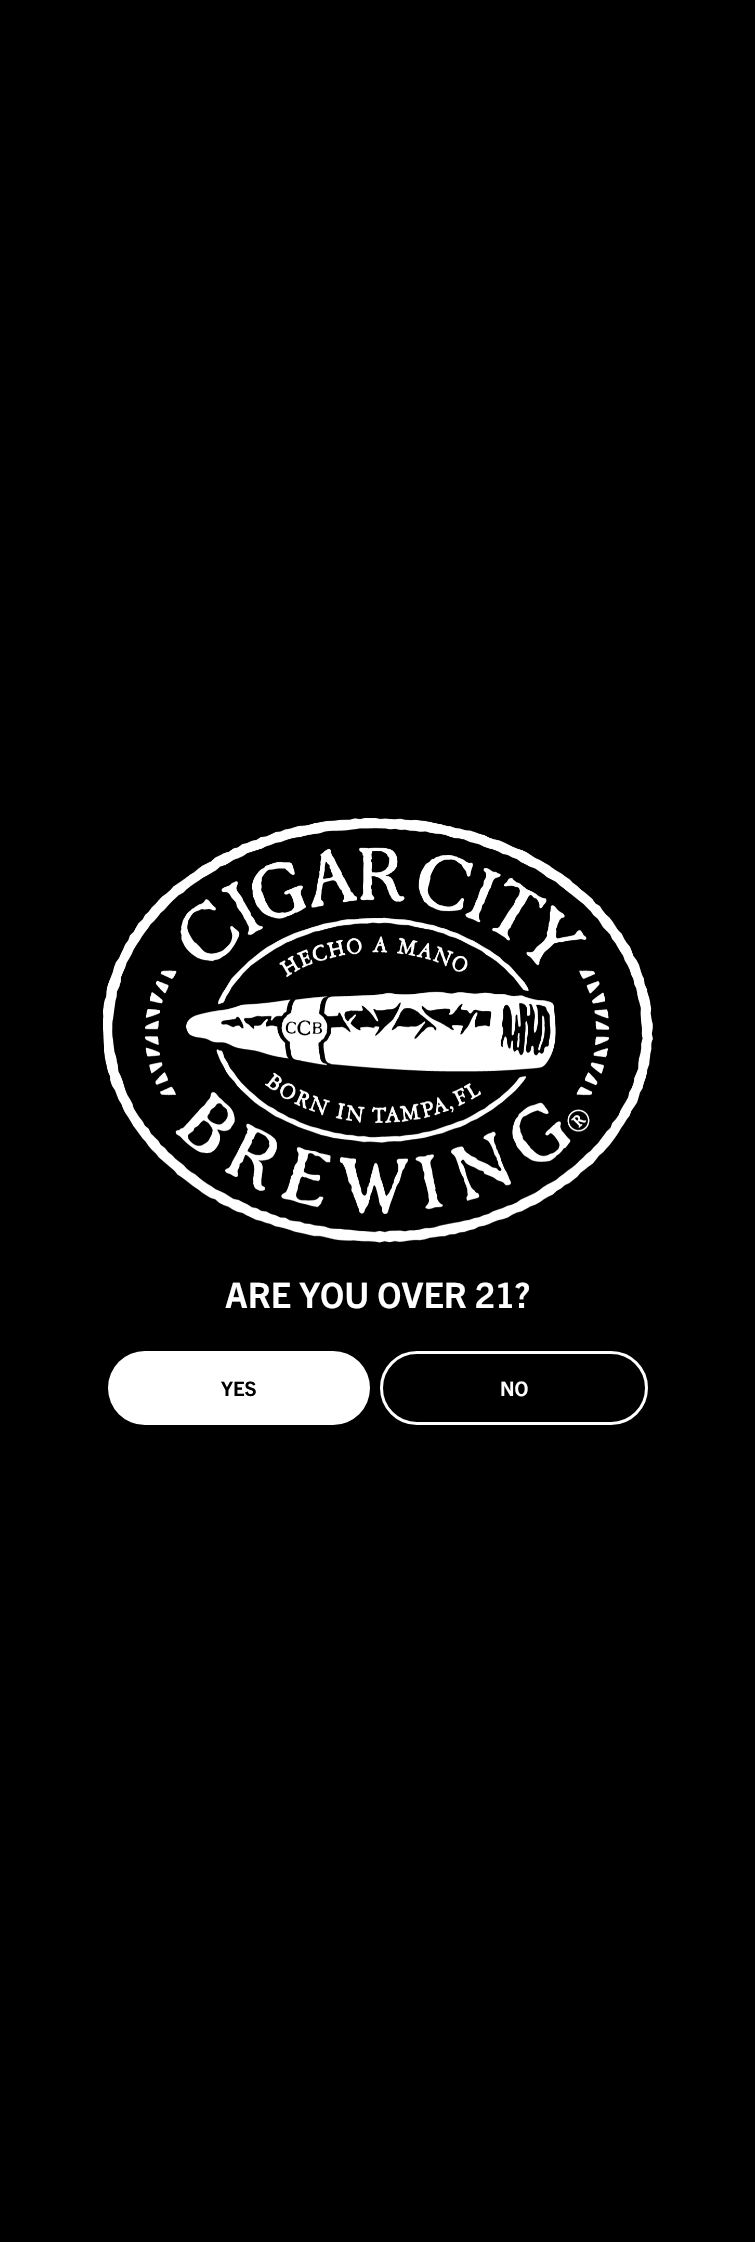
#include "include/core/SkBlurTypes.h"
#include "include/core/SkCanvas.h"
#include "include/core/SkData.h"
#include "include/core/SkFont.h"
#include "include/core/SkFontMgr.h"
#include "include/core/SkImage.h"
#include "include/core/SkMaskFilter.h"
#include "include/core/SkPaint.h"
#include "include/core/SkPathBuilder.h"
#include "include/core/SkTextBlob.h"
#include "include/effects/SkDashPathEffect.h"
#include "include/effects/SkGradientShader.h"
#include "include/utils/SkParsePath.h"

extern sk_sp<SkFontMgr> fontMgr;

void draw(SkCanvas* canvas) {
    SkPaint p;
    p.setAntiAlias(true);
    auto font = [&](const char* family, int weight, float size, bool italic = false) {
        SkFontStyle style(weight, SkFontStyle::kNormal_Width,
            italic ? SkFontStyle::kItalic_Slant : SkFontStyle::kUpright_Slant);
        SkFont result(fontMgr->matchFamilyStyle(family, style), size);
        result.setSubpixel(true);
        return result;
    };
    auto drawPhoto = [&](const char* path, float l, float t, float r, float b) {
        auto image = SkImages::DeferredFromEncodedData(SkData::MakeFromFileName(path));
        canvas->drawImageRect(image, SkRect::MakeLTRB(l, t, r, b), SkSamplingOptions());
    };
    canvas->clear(0xFF000000);
    drawPhoto("media/1.png", 103, 818, 653, 1243);
    auto font1 = font("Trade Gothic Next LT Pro", 700, 35);
    p.setColor(0xFFFFFFFF);
    canvas->drawString("ARE YOU OVER 21?", 225, 1308, font1, p);
    canvas->drawRoundRect(SkRect::MakeLTRB(108, 1351, 370, 1425), 37, 37, p);
    auto font2 = font("Trade Gothic Next LT Pro", 700, 20);
    p.setColor(0xFF000000);
    canvas->drawString("YES", 221, 1396, font2, p);
    p.setStyle(SkPaint::kStroke_Style);
    p.setStrokeWidth(3);
    p.setColor(0xFFFFFFFF);
    canvas->drawRoundRect(SkRect::MakeLTRB(381.5f, 1352.5f, 646.5f, 1423.5f), 35.5f, 35.5f, p);
    p.setStyle(SkPaint::kFill_Style);
    canvas->drawString("NO", 500, 1396, font2, p);
}
